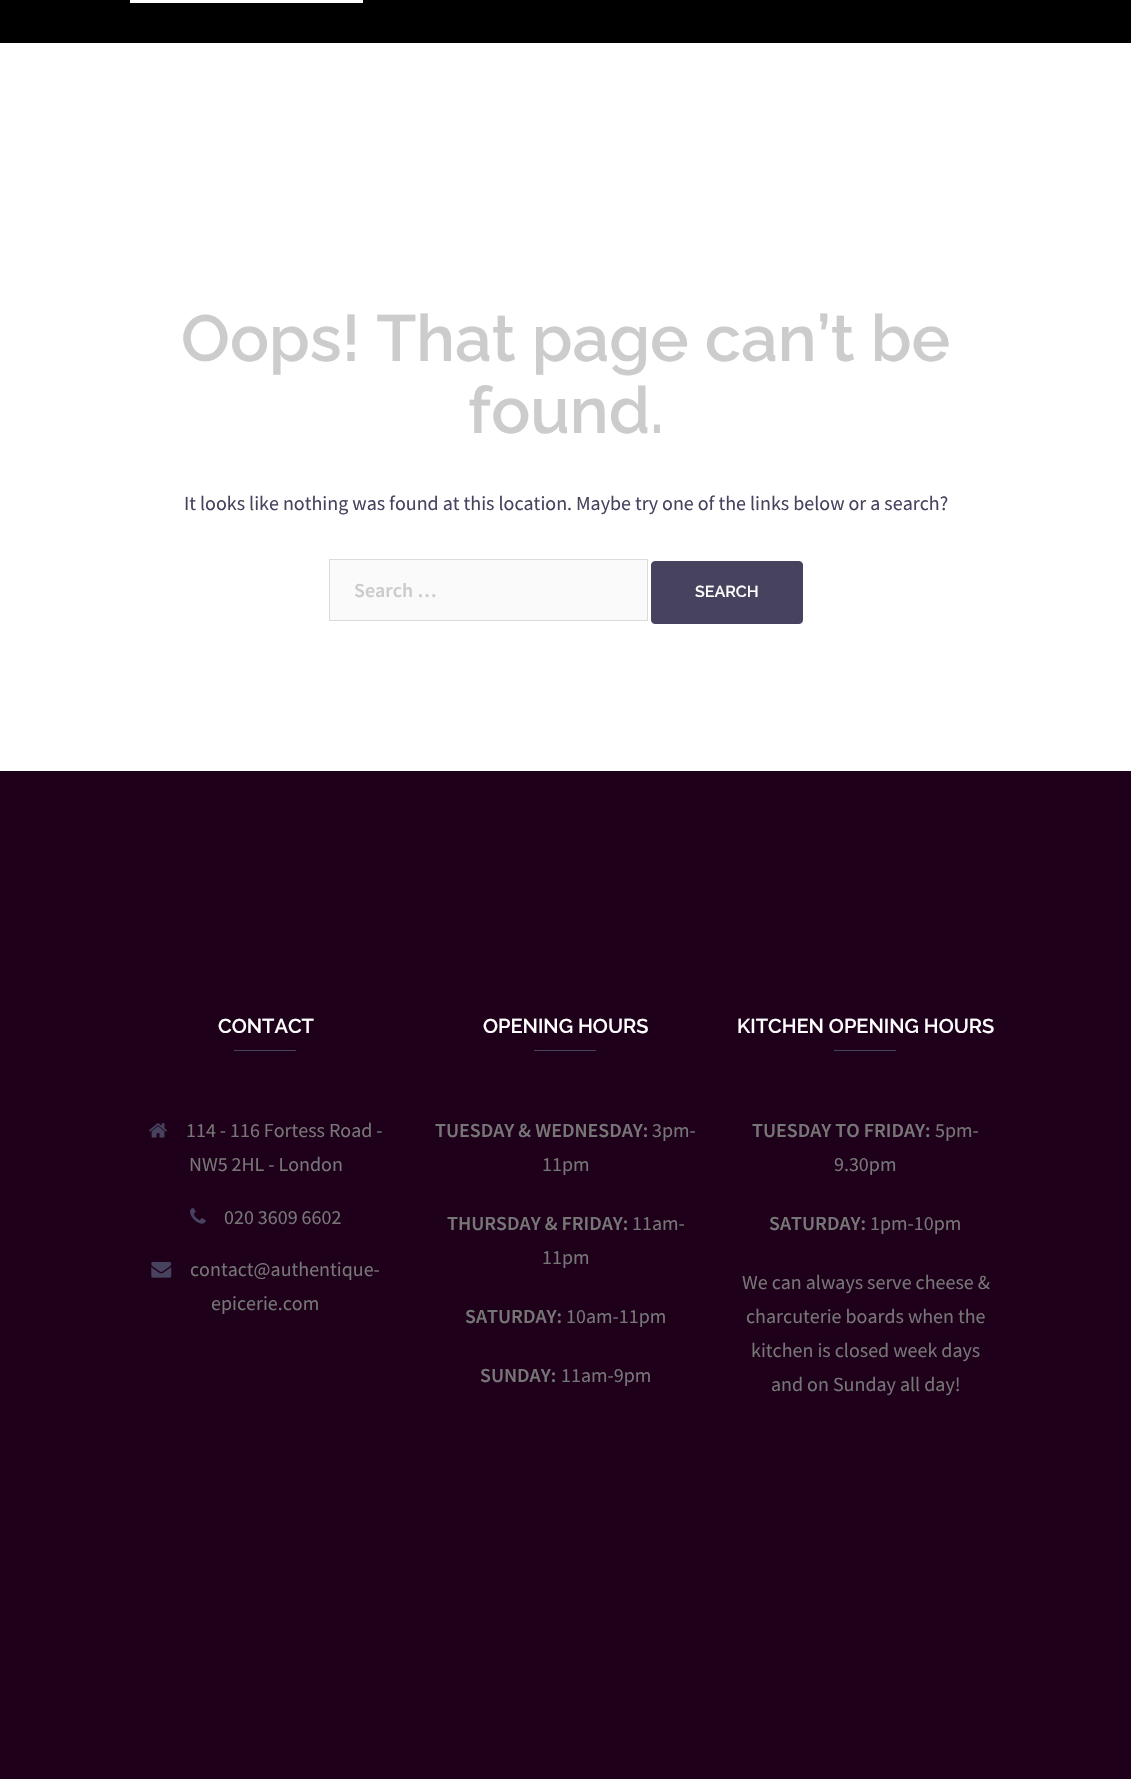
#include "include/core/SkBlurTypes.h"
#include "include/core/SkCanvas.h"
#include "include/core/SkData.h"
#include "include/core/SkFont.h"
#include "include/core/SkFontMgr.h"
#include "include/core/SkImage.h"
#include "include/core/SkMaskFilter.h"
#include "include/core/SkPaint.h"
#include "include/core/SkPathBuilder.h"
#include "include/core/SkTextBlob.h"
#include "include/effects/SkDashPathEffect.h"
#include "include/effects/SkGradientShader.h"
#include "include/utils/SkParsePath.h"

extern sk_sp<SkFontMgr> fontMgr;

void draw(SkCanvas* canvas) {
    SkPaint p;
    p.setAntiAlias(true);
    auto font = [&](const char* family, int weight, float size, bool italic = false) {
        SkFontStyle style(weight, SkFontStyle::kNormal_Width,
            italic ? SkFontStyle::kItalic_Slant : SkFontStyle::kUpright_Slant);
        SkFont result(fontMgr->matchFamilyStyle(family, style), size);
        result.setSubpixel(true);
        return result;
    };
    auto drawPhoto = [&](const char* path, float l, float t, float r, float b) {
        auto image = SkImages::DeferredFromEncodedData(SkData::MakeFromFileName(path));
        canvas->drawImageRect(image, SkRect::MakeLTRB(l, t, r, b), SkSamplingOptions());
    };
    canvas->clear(0xFFFFFFFF);
    p.setColor(0xFF000000);
    canvas->drawRect(SkRect::MakeLTRB(0, 0, 1131, 43), p);
    p.setColor(0xFFFEFEFE);
    canvas->drawRect(SkRect::MakeLTRB(130, 0, 363, 3), p);
    auto font1 = font("Raleway", 600, 65);
    p.setColor(0xFFCCCCCC);
    canvas->drawString("Oops! That page can’t be", 181, 361, font1, p);
    canvas->drawString("found.", 468, 433, font1, p);
    auto font2 = font("Source Sans Pro", 400, 20);
    p.setColor(0xFF47425D);
    canvas->drawString("It looks like nothing was found at this location. Maybe try one of the links below or a search?", 184, 510, font2, p);
    p.setColor(0xFFFAFAFA);
    canvas->drawRect(SkRect::MakeLTRB(329.5f, 559.5f, 647.5f, 620.5f), p);
    p.setStyle(SkPaint::kStroke_Style);
    p.setStrokeWidth(1);
    p.setColor(0xFFDBDBDB);
    canvas->drawRect(SkRect::MakeLTRB(329.5f, 559.5f, 647.5f, 620.5f), p);
    auto font3 = font("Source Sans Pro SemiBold", 600, 20);
    p.setStyle(SkPaint::kFill_Style);
    p.setColor(0xFFCCCCCC);
    canvas->drawString("Search …", 354, 597, font3, p);
    p.setColor(0xFF47425D);
    canvas->drawRoundRect(SkRect::MakeLTRB(651.5f, 561.5f, 802.5f, 623.5f), 3.5f, 3.5f, p);
    p.setStyle(SkPaint::kStroke_Style);
    canvas->drawRoundRect(SkRect::MakeLTRB(651.5f, 561.5f, 802.5f, 623.5f), 3.5f, 3.5f, p);
    auto font4 = font("Raleway", 600, 16);
    p.setStyle(SkPaint::kFill_Style);
    p.setColor(0xFFFFFFFF);
    canvas->drawString("SEARCH", 695, 597, font4, p);
    p.setColor(0xFF1E001B);
    canvas->drawRect(SkRect::MakeLTRB(0, 771, 1131, 1779), p);
    auto font5 = font("Raleway", 600, 20);
    p.setColor(0xFFFFFFFF);
    canvas->drawString("CONTACT", 218, 1033, font5, p);
    p.setColor(0xFF47425D);
    canvas->drawRect(SkRect::MakeLTRB(234, 1050, 296, 1051), p);
    drawPhoto("media/1.png", 149, 1123, 167, 1138);
    p.setColor(0xFF767676);
    canvas->drawString("114 - 116 Fortess Road -", 186, 1137, font2, p);
    canvas->drawString("NW5 2HL - London", 189, 1171, font2, p);
    drawPhoto("media/2.png", 190, 1208, 206, 1224);
    canvas->drawString("020 3609 6602", 224, 1224, font2, p);
    drawPhoto("media/3.png", 151, 1261, 172, 1278);
    canvas->drawString("contact@authentique-", 190, 1276, font2, p);
    canvas->drawString("epicerie.com", 211, 1310, font2, p);
    p.setColor(0xFFFFFFFF);
    canvas->drawString("OPENING HOURS", 483, 1033, font5, p);
    p.setColor(0xFF47425D);
    canvas->drawRect(SkRect::MakeLTRB(534, 1050, 596, 1051), p);
    p.setColor(0xFF767676);
    canvas->drawString("TUESDAY & WEDNESDAY:", 435, 1137, font3, p);
    canvas->drawString("3pm-", 652, 1137, font2, p);
    canvas->drawString("11pm", 542, 1171, font2, p);
    canvas->drawString("THURSDAY & FRIDAY:", 447, 1230, font3, p);
    canvas->drawString("11am-", 632, 1230, font2, p);
    canvas->drawString("11pm", 542, 1264, font2, p);
    canvas->drawString("SATURDAY:", 465, 1323, font3, p);
    canvas->drawString("10am-11pm", 566, 1323, font2, p);
    canvas->drawString("SUNDAY:", 480, 1382, font3, p);
    canvas->drawString("11am-9pm", 561, 1382, font2, p);
    p.setColor(0xFFFFFFFF);
    canvas->drawString("KITCHEN OPENING HOURS", 737, 1033, font5, p);
    p.setColor(0xFF47425D);
    canvas->drawRect(SkRect::MakeLTRB(834, 1050, 896, 1051), p);
    p.setColor(0xFF767676);
    canvas->drawString("TUESDAY TO FRIDAY:", 752, 1137, font3, p);
    canvas->drawString("5pm-", 935, 1137, font2, p);
    canvas->drawString("9.30pm", 834, 1171, font2, p);
    canvas->drawString("SATURDAY:", 769, 1230, font3, p);
    {
        const struct { const char* s; float x, y; } items[] = {
            {"1pm-10pm", 870, 1230},
            {"We can always serve cheese &", 742, 1289},
            {"charcuterie boards when the", 746, 1323},
            {"kitchen is closed week days", 751, 1357},
            {"and on Sunday all day!", 771, 1391},
        };
        for (auto [s, x, y] : items) {
            canvas->drawString(s, x, y, font2, p);
        }
    }
}
